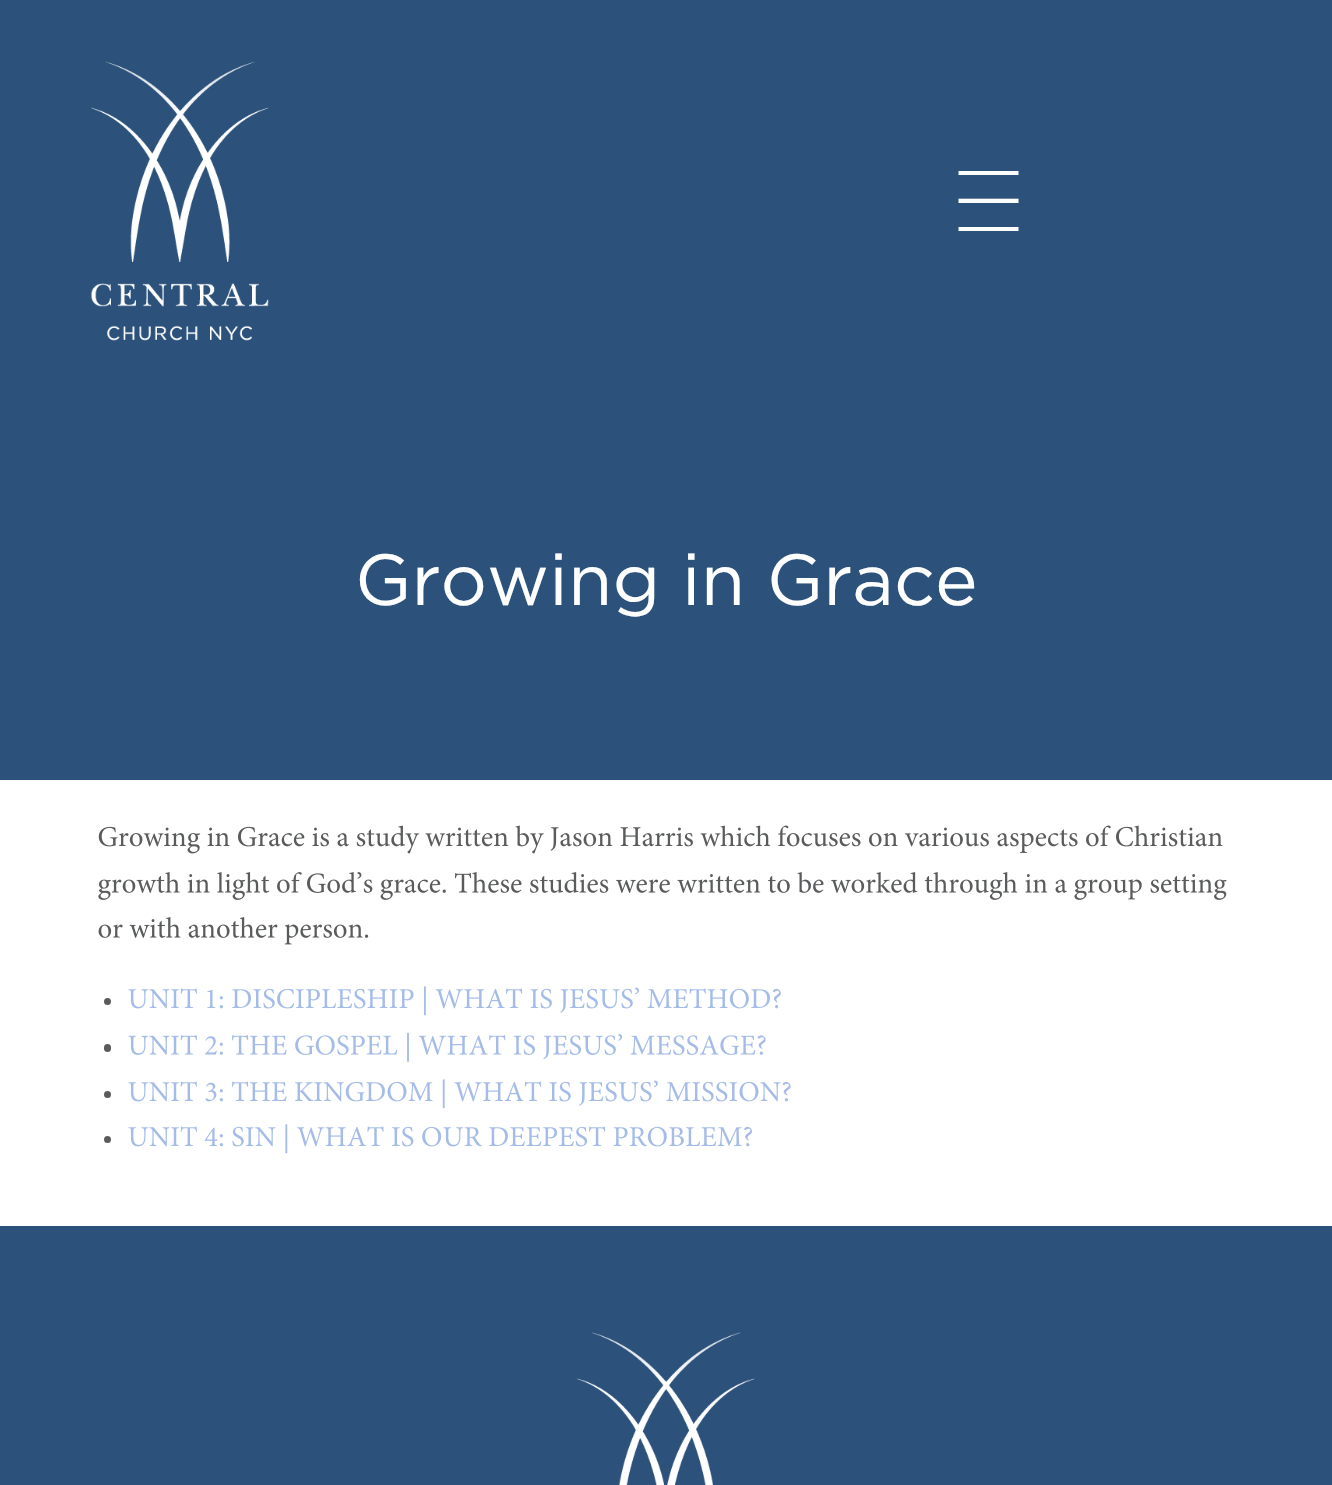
#include "include/core/SkBlurTypes.h"
#include "include/core/SkCanvas.h"
#include "include/core/SkData.h"
#include "include/core/SkFont.h"
#include "include/core/SkFontMgr.h"
#include "include/core/SkImage.h"
#include "include/core/SkMaskFilter.h"
#include "include/core/SkPaint.h"
#include "include/core/SkPathBuilder.h"
#include "include/core/SkTextBlob.h"
#include "include/effects/SkDashPathEffect.h"
#include "include/effects/SkGradientShader.h"
#include "include/utils/SkParsePath.h"

extern sk_sp<SkFontMgr> fontMgr;

void draw(SkCanvas* canvas) {
    SkPaint p;
    p.setAntiAlias(true);
    auto font = [&](const char* family, int weight, float size, bool italic = false) {
        SkFontStyle style(weight, SkFontStyle::kNormal_Width,
            italic ? SkFontStyle::kItalic_Slant : SkFontStyle::kUpright_Slant);
        SkFont result(fontMgr->matchFamilyStyle(family, style), size);
        result.setSubpixel(true);
        return result;
    };
    auto drawPhoto = [&](const char* path, float l, float t, float r, float b) {
        auto image = SkImages::DeferredFromEncodedData(SkData::MakeFromFileName(path));
        canvas->drawImageRect(image, SkRect::MakeLTRB(l, t, r, b), SkSamplingOptions());
    };
    canvas->clear(0xFF2C527B);
    drawPhoto("media/1.png", 91, 61, 269, 341);
    drawPhoto("media/2.png", 958, 171, 1019, 231);
    auto font1 = font("Gotham", 400, 72);
    p.setColor(0xFFFFFFFF);
    canvas->drawString("Growing in Grace", 355, 605, font1, p);
    canvas->drawRect(SkRect::MakeLTRB(0, 780, 1332, 1226), p);
    drawPhoto("media/3.png", 98, 825, 1223, 854);
    drawPhoto("media/4.png", 98, 872, 1227, 900);
    drawPhoto("media/5.png", 98, 917, 369, 945);
    p.setColor(0xFF5A5B5C);
    canvas->drawCircle(107.5f, 1001.5f, 3.5f, p);
    drawPhoto("media/6.png", 128, 986, 781, 1016);
    canvas->drawRoundRect(SkRect::MakeLTRB(104, 1044, 111, 1052), 3.5f, 3.5f, p);
    drawPhoto("media/7.png", 128, 1032, 766, 1062);
    canvas->drawCircle(107.5f, 1094.5f, 3.5f, p);
    drawPhoto("media/8.png", 128, 1079, 791, 1109);
    canvas->drawCircle(107.5f, 1139.5f, 3.5f, p);
    drawPhoto("media/9.png", 128, 1124, 753, 1154);
    drawPhoto("media/10.png", 577, 1332, 755, 1485);
}
